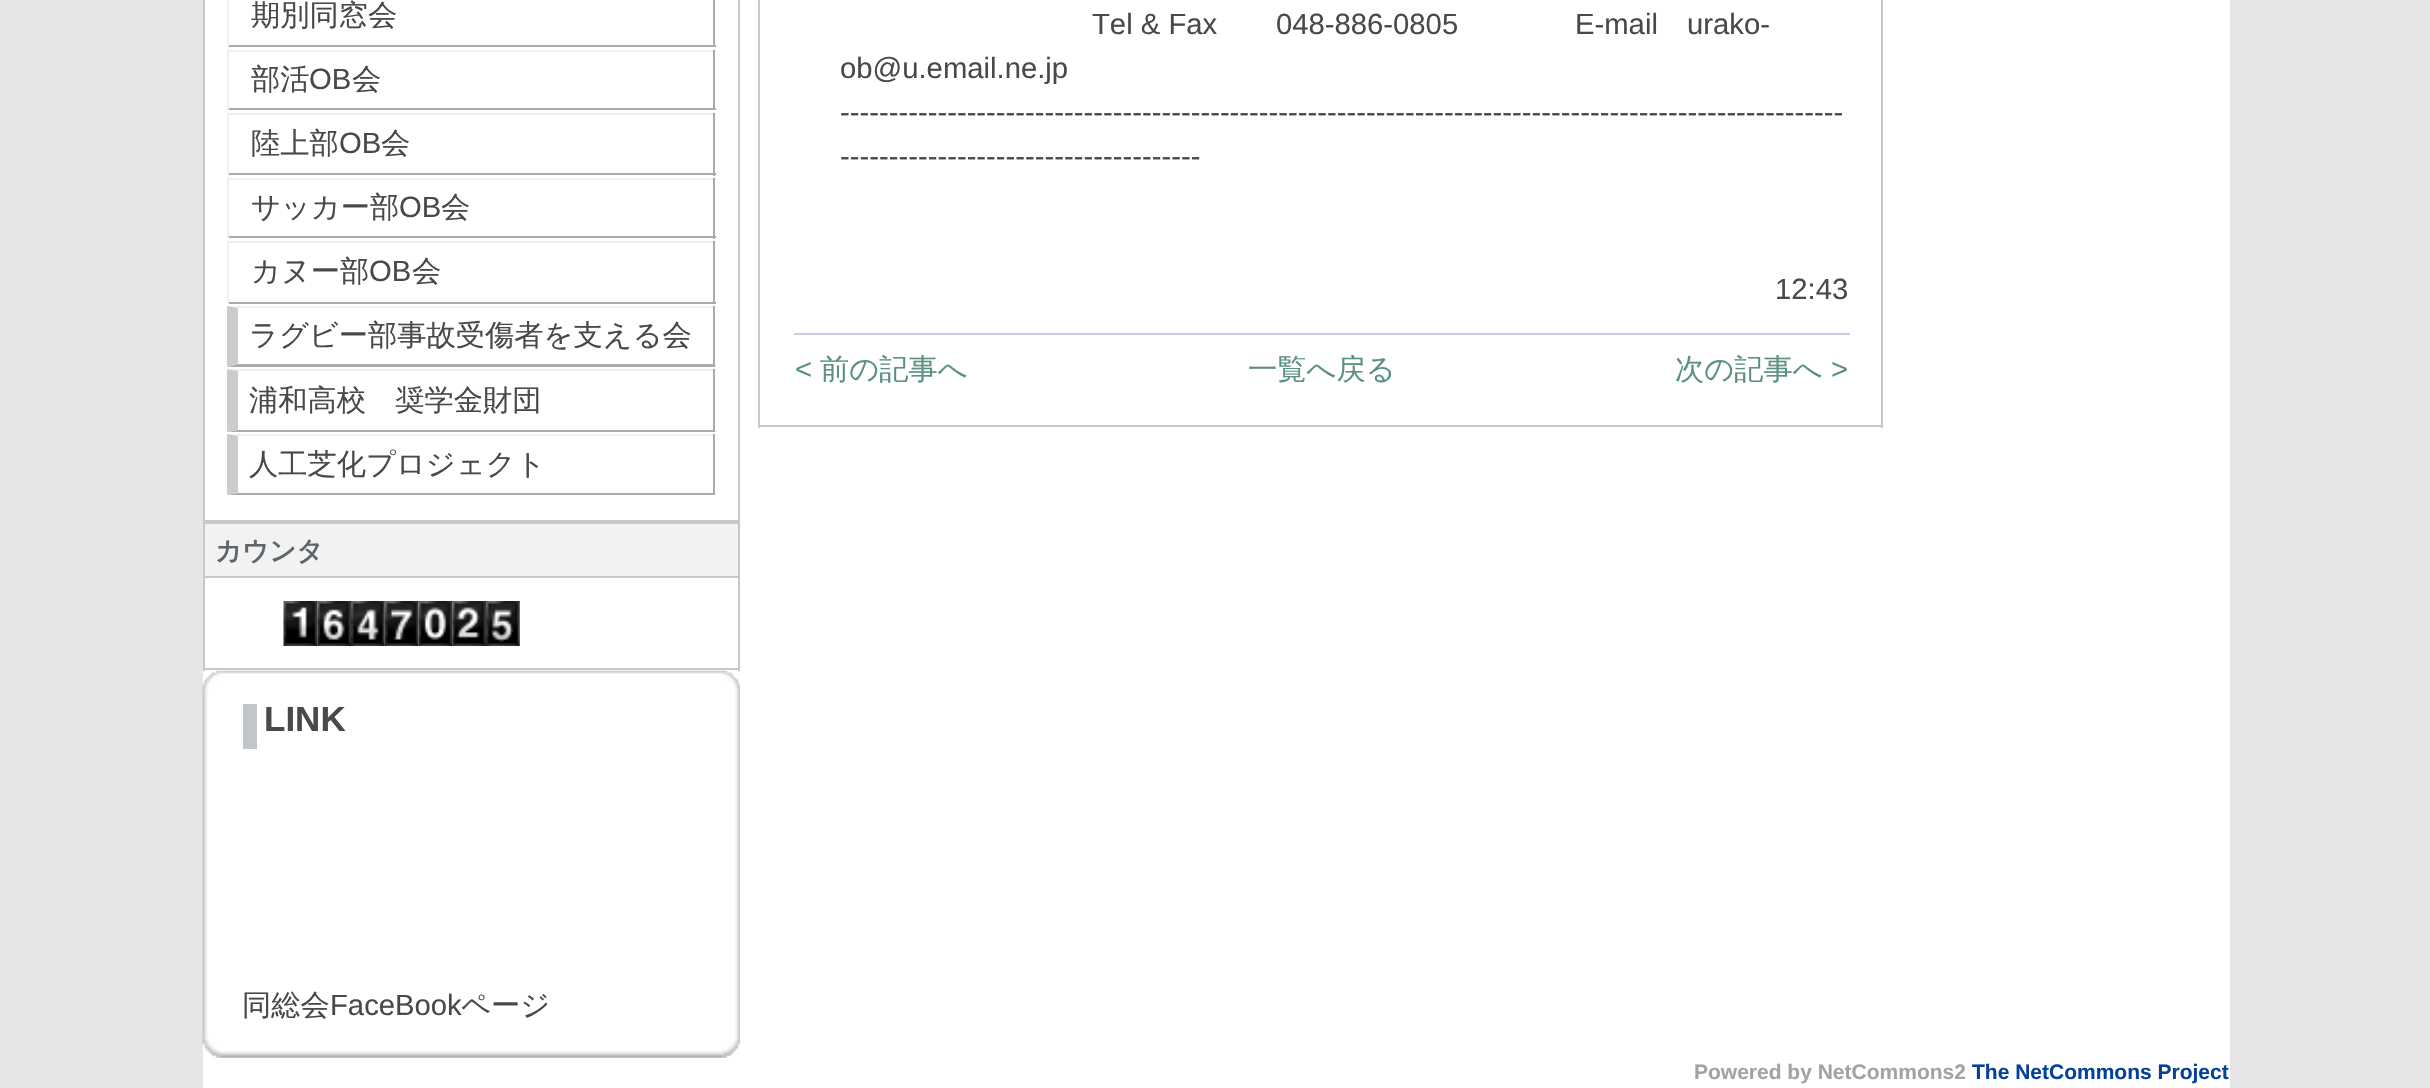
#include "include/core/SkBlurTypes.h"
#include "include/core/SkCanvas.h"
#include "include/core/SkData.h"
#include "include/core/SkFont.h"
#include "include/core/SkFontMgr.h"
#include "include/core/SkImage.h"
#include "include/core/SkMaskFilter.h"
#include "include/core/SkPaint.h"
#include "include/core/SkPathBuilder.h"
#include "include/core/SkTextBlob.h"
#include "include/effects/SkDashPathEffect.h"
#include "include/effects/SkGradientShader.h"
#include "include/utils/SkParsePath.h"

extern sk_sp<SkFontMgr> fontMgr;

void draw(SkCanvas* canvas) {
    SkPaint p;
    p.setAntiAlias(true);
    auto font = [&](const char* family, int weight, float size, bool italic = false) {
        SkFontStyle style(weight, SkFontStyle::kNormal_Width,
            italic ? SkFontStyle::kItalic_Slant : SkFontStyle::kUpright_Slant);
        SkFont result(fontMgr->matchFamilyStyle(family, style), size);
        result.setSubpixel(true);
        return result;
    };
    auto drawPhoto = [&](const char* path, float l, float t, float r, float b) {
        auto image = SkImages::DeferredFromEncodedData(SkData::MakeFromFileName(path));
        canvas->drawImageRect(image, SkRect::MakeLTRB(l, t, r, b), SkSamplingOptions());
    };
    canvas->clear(0xFFE6E6E6);
    {
        const struct { float l, t, r, b; SkColor color; } items[] = {
            {203, 0, 2230, 1088, 0xFFFFFFFF},
            {738, 0, 740, 522, 0xFFC8C8C8},
            {203, 520, 740, 524, 0xFFC8C8C8},
            {203, 0, 205, 522, 0xFFC8C8C8},
            {713, 0, 715, 47, 0xFFAAAAAA},
            {227, 45, 716, 47, 0xFFAAAAAA},
            {227, 0, 229, 47, 0xFFEFEFEF},
        };
        for (auto [l, t, r, b, color] : items) {
            p.setColor(color);
            canvas->drawRect(SkRect::MakeLTRB(l, t, r, b), p);
        }
    }
    auto font1 = font("WenQuanYi Zen Hei", 500, 29.25f);
    p.setColor(0xFF494949);
    canvas->drawString("期別同窓会", 251, 25, font1, p);
    {
        const struct { float l, t, r, b; SkColor color; } items[] = {
            {227, 50, 716, 52, 0xFFEFEFEF},
            {713, 50, 715, 110, 0xFFAAAAAA},
            {227, 108, 716, 110, 0xFFAAAAAA},
            {227, 50, 229, 110, 0xFFEFEFEF},
        };
        for (auto [l, t, r, b, color] : items) {
            p.setColor(color);
            canvas->drawRect(SkRect::MakeLTRB(l, t, r, b), p);
        }
    }
    p.setColor(0xFF494949);
    canvas->drawString("部活", 251, 89, font1, p);
    auto font2 = font("Liberation Sans", 400, 29.25f);
    canvas->drawString("OB", 309, 89, font2, p);
    canvas->drawString("会", 352, 89, font1, p);
    {
        const struct { float l, t, r, b; SkColor color; } items[] = {
            {227, 113, 716, 115, 0xFFEFEFEF},
            {713, 113, 715, 176, 0xFFAAAAAA},
            {227, 173, 716, 175, 0xFFAAAAAA},
            {227, 113, 229, 176, 0xFFEFEFEF},
        };
        for (auto [l, t, r, b, color] : items) {
            p.setColor(color);
            canvas->drawRect(SkRect::MakeLTRB(l, t, r, b), p);
        }
    }
    p.setColor(0xFF494949);
    canvas->drawString("陸上部", 251, 153, font1, p);
    canvas->drawString("OB", 339, 153, font2, p);
    canvas->drawString("会", 381, 153, font1, p);
    {
        const struct { float l, t, r, b; SkColor color; } items[] = {
            {227, 178, 716, 180, 0xFFEFEFEF},
            {713, 178, 715, 239, 0xFFAAAAAA},
            {227, 236, 716, 238, 0xFFAAAAAA},
            {227, 178, 229, 239, 0xFFEFEFEF},
        };
        for (auto [l, t, r, b, color] : items) {
            p.setColor(color);
            canvas->drawRect(SkRect::MakeLTRB(l, t, r, b), p);
        }
    }
    p.setColor(0xFF494949);
    canvas->drawString("サッカー部", 251, 217, font1, p);
    canvas->drawString("OB", 399, 217, font2, p);
    canvas->drawString("会", 441, 217, font1, p);
    {
        const struct { float l, t, r, b; SkColor color; } items[] = {
            {227, 241, 716, 243, 0xFFEFEFEF},
            {713, 241, 715, 304, 0xFFAAAAAA},
            {227, 302, 716, 304, 0xFFAAAAAA},
            {227, 241, 229, 304, 0xFFEFEFEF},
        };
        for (auto [l, t, r, b, color] : items) {
            p.setColor(color);
            canvas->drawRect(SkRect::MakeLTRB(l, t, r, b), p);
        }
    }
    p.setColor(0xFF494949);
    canvas->drawString("カヌー部", 251, 281, font1, p);
    canvas->drawString("OB", 369, 281, font2, p);
    canvas->drawString("会", 412, 281, font1, p);
    p.setColor(0xFFEFEFEF);
    canvas->drawPath(SkPathBuilder().moveTo(227, 306).lineTo(716, 306).lineTo(713, 308).lineTo(238, 308).close().detach(), p);
    p.setColor(0xFFAAAAAA);
    canvas->drawRect(SkRect::MakeLTRB(713, 306, 715, 367), p);
    canvas->drawPath(SkPathBuilder().moveTo(716, 367).lineTo(227, 367).lineTo(238, 364).lineTo(713, 364).close().detach(), p);
    p.setColor(0xFFCCCCCC);
    canvas->drawPath(SkPathBuilder().moveTo(227, 367).lineTo(227, 306).lineTo(238, 308).lineTo(238, 364).close().detach(), p);
    p.setColor(0xFF494949);
    canvas->drawString("ラグビー部事故受傷者を支える会", 249, 345, font1, p);
    p.setColor(0xFFEFEFEF);
    canvas->drawPath(SkPathBuilder().moveTo(227, 369).lineTo(716, 369).lineTo(713, 371).lineTo(238, 371).close().detach(), p);
    p.setColor(0xFFAAAAAA);
    canvas->drawRect(SkRect::MakeLTRB(713, 369, 715, 432), p);
    canvas->drawPath(SkPathBuilder().moveTo(716, 432).lineTo(227, 432).lineTo(238, 430).lineTo(713, 430).close().detach(), p);
    p.setColor(0xFFCCCCCC);
    canvas->drawPath(SkPathBuilder().moveTo(227, 432).lineTo(227, 369).lineTo(238, 371).lineTo(238, 430).close().detach(), p);
    p.setColor(0xFF494949);
    canvas->drawString("浦和高校　奨学金財団", 249, 410, font1, p);
    p.setColor(0xFFEFEFEF);
    canvas->drawPath(SkPathBuilder().moveTo(227, 434).lineTo(716, 434).lineTo(713, 436).lineTo(238, 436).close().detach(), p);
    p.setColor(0xFFAAAAAA);
    canvas->drawRect(SkRect::MakeLTRB(713, 434, 715, 495), p);
    canvas->drawPath(SkPathBuilder().moveTo(716, 495).lineTo(227, 495).lineTo(238, 493).lineTo(713, 493).close().detach(), p);
    p.setColor(0xFFCCCCCC);
    canvas->drawPath(SkPathBuilder().moveTo(227, 495).lineTo(227, 434).lineTo(238, 436).lineTo(238, 493).close().detach(), p);
    p.setColor(0xFF494949);
    canvas->drawString("人工芝化プロジェクト", 249, 474, font1, p);
    {
        const struct { float l, t, r, b; SkColor color; } items[] = {
            {738, 522, 740, 671, 0xFFC8C8C8},
            {203, 668, 740, 670, 0xFFC8C8C8},
            {203, 522, 205, 671, 0xFFC8C8C8},
            {205, 524, 738, 576, 0xFFF2F2F2},
            {203, 576, 740, 578, 0xFFC8C8C8},
        };
        for (auto [l, t, r, b, color] : items) {
            p.setColor(color);
            canvas->drawRect(SkRect::MakeLTRB(l, t, r, b), p);
        }
    }
    auto font3 = font("WenQuanYi Zen Hei", 700, 26.5f);
    p.setColor(0xFF5C666B);
    canvas->drawString("カウンタ", 215, 560, font3, p);
    drawPhoto("media/1.png", 283, 601, 318, 646);
    drawPhoto("media/2.png", 317, 601, 351, 646);
    drawPhoto("media/3.png", 351, 601, 385, 646);
    drawPhoto("media/4.png", 384, 601, 419, 646);
    drawPhoto("media/5.png", 418, 601, 453, 646);
    drawPhoto("media/6.png", 452, 601, 486, 646);
    drawPhoto("media/7.png", 486, 601, 520, 646);
    drawPhoto("media/8.png", 202, 670, 221, 689);
    drawPhoto("media/9.png", 203, 671, 217, 689);
    drawPhoto("media/10.png", 220, 670, 723, 674);
    drawPhoto("media/11.png", 722, 670, 740, 689);
    drawPhoto("media/12.png", 722, 671, 740, 689);
    drawPhoto("media/13.png", 202, 689, 208, 1040);
    p.setColor(0xFFC2C6C9);
    canvas->drawRect(SkRect::MakeLTRB(243, 704, 257, 749), p);
    auto font4 = font("Liberation Sans", 700, 35);
    p.setColor(0xFF494949);
    canvas->drawString("LINK", 264, 731, font4, p);
    canvas->drawString("同総会", 242, 1015, font1, p);
    canvas->drawString("FaceBook", 330, 1015, font2, p);
    canvas->drawString("ページ", 461, 1015, font1, p);
    drawPhoto("media/14.png", 735, 689, 740, 1040);
    drawPhoto("media/15.png", 202, 1039, 221, 1058);
    drawPhoto("media/16.png", 220, 1051, 723, 1058);
    drawPhoto("media/17.png", 722, 1039, 740, 1058);
    {
        const struct { float l, t, r, b; SkColor color; } items[] = {
            {1881, 0, 1883, 428, 0xFFC8C8C8},
            {758, 425, 1883, 427, 0xFFC8C8C8},
            {758, 0, 760, 428, 0xFFC8C8C8},
        };
        for (auto [l, t, r, b, color] : items) {
            p.setColor(color);
            canvas->drawRect(SkRect::MakeLTRB(l, t, r, b), p);
        }
    }
    p.setColor(0xFF494949);
    {
        const struct { const char* s; float x, y; } items[] = {
            {"Tel & Fax", 1092, 34},
            {"048-886-0805", 1276, 34},
            {"E-mail", 1575, 34},
            {"urako-", 1687, 34},
            {"ob@u.email.ne.jp", 840, 78},
            {"-------------------------------------------------------------------------------------------------------", 840, 122},
            {"-------------------------------------", 840, 166},
        };
        for (auto [s, x, y] : items) {
            canvas->drawString(s, x, y, font2, p);
        }
    }
    p.setColor(0xFFC7CDE6);
    canvas->drawRect(SkRect::MakeLTRB(794, 333, 1850, 335), p);
    p.setColor(0xFF494949);
    canvas->drawString("12:43", 1775, 299, font2, p);
    p.setColor(0xFF5C9084);
    canvas->drawString("<", 795, 379, font2, p);
    {
        const struct { const char* s; float x, y; } items[] = {
            {"前の記事へ", 820, 379},
            {"一覧へ戻る", 1248, 379},
            {"次の記事へ", 1675, 379},
        };
        for (auto [s, x, y] : items) {
            canvas->drawString(s, x, y, font1, p);
        }
    }
    canvas->drawString(">", 1831, 379, font2, p);
    auto font5 = font("Liberation Sans", 700, 21);
    p.setColor(0xFFA3A3A3);
    canvas->drawString("Powered by NetCommons2", 1694, 1079, font5, p);
    p.setColor(0xFF04419A);
    canvas->drawString("The NetCommons Project", 1972, 1079, font5, p);
}
